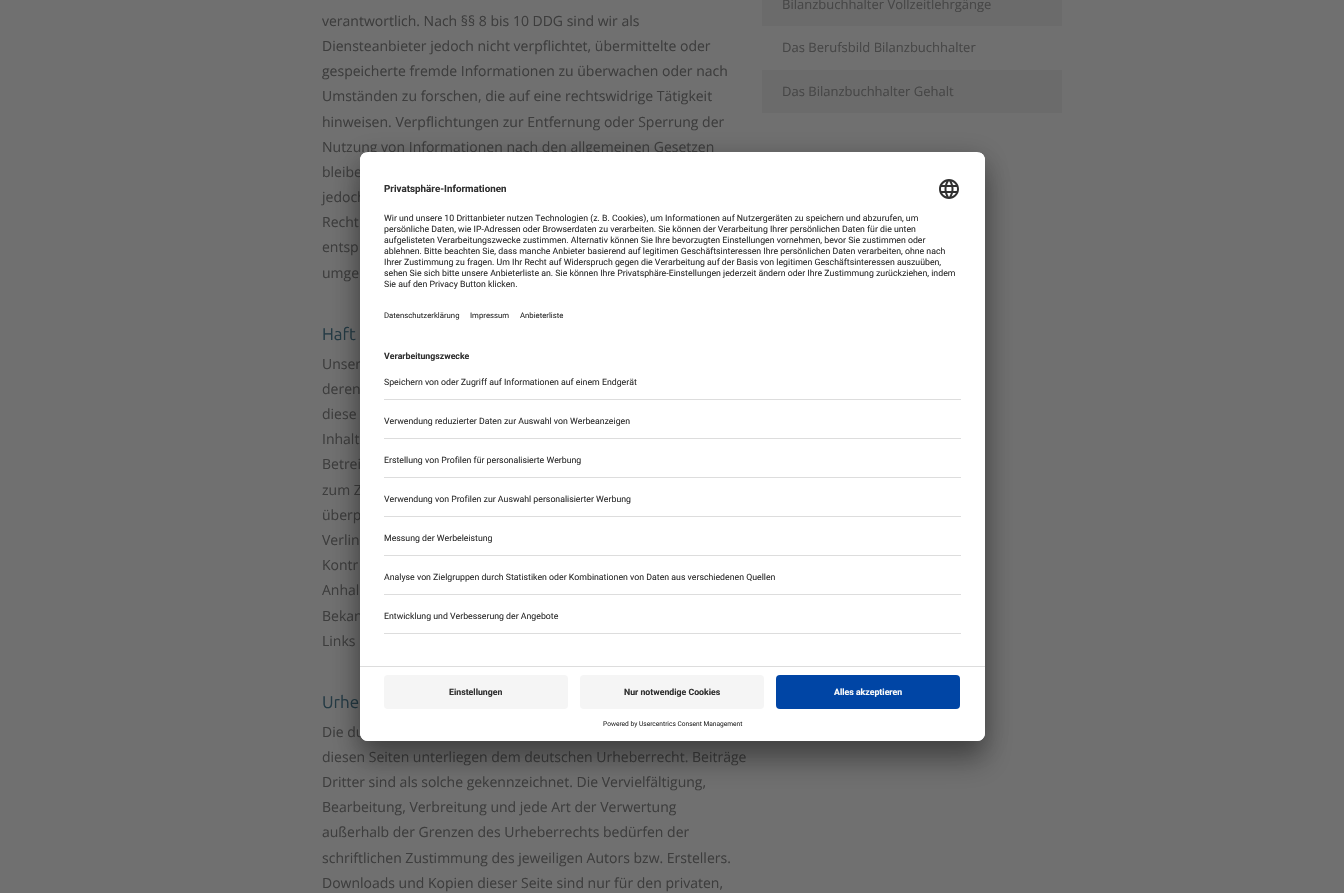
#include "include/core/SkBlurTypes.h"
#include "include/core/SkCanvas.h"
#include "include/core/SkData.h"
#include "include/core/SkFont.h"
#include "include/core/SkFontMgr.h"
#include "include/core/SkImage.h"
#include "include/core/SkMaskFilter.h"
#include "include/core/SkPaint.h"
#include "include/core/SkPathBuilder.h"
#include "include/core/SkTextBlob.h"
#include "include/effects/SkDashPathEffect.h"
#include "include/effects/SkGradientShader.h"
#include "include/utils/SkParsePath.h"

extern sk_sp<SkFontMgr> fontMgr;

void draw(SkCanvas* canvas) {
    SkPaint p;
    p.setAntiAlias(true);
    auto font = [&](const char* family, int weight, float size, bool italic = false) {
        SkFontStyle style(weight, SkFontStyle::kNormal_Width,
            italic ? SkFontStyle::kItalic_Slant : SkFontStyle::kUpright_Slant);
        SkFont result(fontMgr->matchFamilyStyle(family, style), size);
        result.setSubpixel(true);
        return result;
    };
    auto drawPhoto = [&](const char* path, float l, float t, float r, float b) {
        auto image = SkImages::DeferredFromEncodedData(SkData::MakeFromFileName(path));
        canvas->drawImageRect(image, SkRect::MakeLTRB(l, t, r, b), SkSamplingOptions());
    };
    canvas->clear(0xFF707070);
    auto font1 = font("Open Sans", 400, 14);
    p.setColor(0xFF3D3D3D);
    {
        const struct { const char* s; float x, y; } items[] = {
            {"verantwortlich. Nach §§ 8 bis 10 DDG sind wir als", 322, 26},
            {"Diensteanbieter jedoch nicht verpflichtet, übermittelte oder", 322, 51},
            {"gespeicherte fremde Informationen zu überwachen oder nach", 322, 76},
            {"Umständen zu forschen, die auf eine rechtswidrige Tätigkeit", 322, 101},
            {"hinweisen. Verpflichtungen zur Entfernung oder Sperrung der", 322, 127},
            {"Nutzung von Informationen nach den allgemeinen Gesetzen", 322, 152},
            {"bleibe", 322, 177},
            {"jedoch", 322, 202},
            {"Recht", 322, 227},
            {"entsp", 322, 252},
            {"umge", 322, 278},
        };
        for (auto [s, x, y] : items) {
            canvas->drawString(s, x, y, font1, p);
        }
    }
    auto font2 = font("Ubuntu", 400, 17);
    p.setColor(0xFF243A44);
    canvas->drawString("Haft", 322, 340, font2, p);
    p.setColor(0xFF3D3D3D);
    {
        const struct { const char* s; float x, y; } items[] = {
            {"Unser", 322, 369},
            {"deren", 322, 394},
            {"diese", 322, 419},
            {"Inhalt", 322, 444},
            {"Betrei", 322, 469},
            {"zum Z", 322, 495},
            {"überp", 322, 520},
            {"Verlin", 322, 545},
            {"Kontr", 322, 570},
            {"Anhal", 322, 595},
            {"Bekan", 322, 621},
            {"Links", 322, 646},
        };
        for (auto [s, x, y] : items) {
            canvas->drawString(s, x, y, font1, p);
        }
    }
    p.setColor(0xFF243A44);
    canvas->drawString("Urhe", 322, 708, font2, p);
    p.setColor(0xFF3D3D3D);
    {
        const struct { const char* s; float x, y; } items[] = {
            {"Die du", 322, 737},
            {"diesen Seiten unterliegen dem deutschen Urheberrecht. Beiträge", 322, 762},
            {"Dritter sind als solche gekennzeichnet. Die Vervielfältigung,", 322, 787},
            {"Bearbeitung, Verbreitung und jede Art der Verwertung", 322, 812},
            {"außerhalb der Grenzen des Urheberrechts bedürfen der", 322, 837},
            {"schriftlichen Zustimmung des jeweiligen Autors bzw. Erstellers.", 322, 863},
            {"Downloads und Kopien dieser Seite sind nur für den privaten,", 322, 888},
        };
        for (auto [s, x, y] : items) {
            canvas->drawString(s, x, y, font1, p);
        }
    }
    p.setColor(0xFF6B6B6B);
    canvas->drawRect(SkRect::MakeLTRB(762, 0, 1062, 26), p);
    auto font3 = font("Open Sans", 400, 13);
    p.setColor(0xFF464646);
    canvas->drawString("Bilanzbuchhalter Vollzeitlehrgänge", 782, 9, font3, p);
    canvas->drawString("Das Berufsbild Bilanzbuchhalter", 782, 52, font3, p);
    p.setColor(0xFF6B6B6B);
    canvas->drawRect(SkRect::MakeLTRB(762, 70, 1062, 113), p);
    p.setColor(0xFF464646);
    canvas->drawString("Das Bilanzbuchhalter Gehalt", 782, 96, font3, p);
    p.setColor(0x4D000000);
    p.setMaskFilter(SkMaskFilter::MakeBlur(kNormal_SkBlurStyle, 14));
    canvas->drawRoundRect(SkRect::MakeLTRB(360, 172, 985, 761), 8, 8, p);
    p.setMaskFilter(nullptr);
    p.setColor(0x38000000);
    p.setMaskFilter(SkMaskFilter::MakeBlur(kNormal_SkBlurStyle, 13));
    canvas->drawRoundRect(SkRect::MakeLTRB(360, 157, 985, 746), 8, 8, p);
    p.setMaskFilter(nullptr);
    p.setColor(0xFFFFFFFF);
    canvas->drawRoundRect(SkRect::MakeLTRB(360, 152, 985, 741), 8, 8, p);
    canvas->save();
    canvas->clipPath(SkPathBuilder().moveTo(368, 152).lineTo(977, 152).cubicTo(981.5f, 152, 985, 155.5f, 985, 160).lineTo(985, 733).cubicTo(985, 737.5f, 981.5f, 741, 977, 741).lineTo(368, 741).cubicTo(363.5f, 741, 360, 737.5f, 360, 733).lineTo(360, 160).cubicTo(360, 155.5f, 363.5f, 152, 368, 152).close().detach(), true);
    canvas->clipPath(SkPathBuilder().moveTo(368, 152).lineTo(977, 152).cubicTo(981.5f, 152, 985, 155.5f, 985, 160).lineTo(985, 666).lineTo(360, 666).lineTo(360, 160).cubicTo(360, 155.5f, 363.5f, 152, 368, 152).close().detach(), true);
    canvas->drawRect(SkRect::MakeLTRB(360, 153, 985, 666), p);
    canvas->drawRect(SkRect::MakeLTRB(360, 153, 985, 339), p);
    canvas->restore();
    auto font4 = font("Roboto", 700, 9.8f);
    p.setColor(0xFF303030);
    canvas->drawString("Privatsphäre-Informationen", 384, 192, font4, p);
    drawPhoto("media/1.png", 939, 179, 959, 199);
    auto font5 = font("Roboto", 400, 8.75f);
    {
        const struct { const char* s; float x, y; } items[] = {
            {"Wir und unsere 10 Drittanbieter nutzen Technologien (z. B. Cookies), um Informationen auf Nutzergeräten zu speichern und abzurufen, um", 384, 221},
            {"persönliche Daten, wie IP-Adressen oder Browserdaten zu verarbeiten. Sie können der Verarbeitung Ihrer persönlichen Daten für die unten", 384, 232},
            {"aufgelisteten Verarbeitungszwecke zustimmen. Alternativ können Sie Ihre bevorzugten Einstellungen vornehmen, bevor Sie zustimmen oder", 384, 243},
            {"ablehnen. Bitte beachten Sie, dass manche Anbieter basierend auf legitimen Geschäftsinteressen Ihre persönlichen Daten verarbeiten, ohne nach", 384, 254},
            {"Ihrer Zustimmung zu fragen. Um Ihr Recht auf Widerspruch gegen die Verarbeitung auf der Basis von legitimen Geschäftsinteressen auszuüben,", 384, 265},
            {"sehen Sie sich bitte unsere Anbieterliste an. Sie können Ihre Privatsphäre-Einstellungen jederzeit ändern oder Ihre Zustimmung zurückziehen, indem", 384, 276},
            {"Sie auf den Privacy Button klicken.", 384, 287},
        };
        for (auto [s, x, y] : items) {
            canvas->drawString(s, x, y, font5, p);
        }
    }
    auto font6 = font("Roboto", 400, 7.75f);
    {
        const struct { const char* s; float x, y; } items[] = {
            {"Datenschutzerklärung", 384, 318},
            {"Impressum", 470, 318},
            {"Anbieterliste", 520, 318},
        };
        for (auto [s, x, y] : items) {
            canvas->drawString(s, x, y, font6, p);
        }
    }
    auto font7 = font("Roboto", 700, 8.75f);
    canvas->drawString("Verarbeitungszwecke", 384, 359, font7, p);
    p.setColor(0xFFDDDDDD);
    canvas->drawRect(SkRect::MakeLTRB(384, 399, 961, 400), p);
    p.setColor(0xFF303030);
    canvas->drawString("Speichern von oder Zugriff auf Informationen auf einem Endgerät", 384, 385, font5, p);
    p.setColor(0xFFDDDDDD);
    canvas->drawRect(SkRect::MakeLTRB(384, 438, 961, 439), p);
    p.setColor(0xFF303030);
    canvas->drawString("Verwendung reduzierter Daten zur Auswahl von Werbeanzeigen", 384, 424, font5, p);
    p.setColor(0xFFDDDDDD);
    canvas->drawRect(SkRect::MakeLTRB(384, 477, 961, 478), p);
    p.setColor(0xFF303030);
    canvas->drawString("Erstellung von Profilen für personalisierte Werbung", 384, 463, font5, p);
    p.setColor(0xFFDDDDDD);
    canvas->drawRect(SkRect::MakeLTRB(384, 516, 961, 517), p);
    p.setColor(0xFF303030);
    canvas->drawString("Verwendung von Profilen zur Auswahl personalisierter Werbung", 384, 502, font5, p);
    p.setColor(0xFFDDDDDD);
    canvas->drawRect(SkRect::MakeLTRB(384, 555, 961, 556), p);
    p.setColor(0xFF303030);
    canvas->drawString("Messung der Werbeleistung", 384, 541, font5, p);
    p.setColor(0xFFDDDDDD);
    canvas->drawRect(SkRect::MakeLTRB(384, 594, 961, 595), p);
    p.setColor(0xFF303030);
    canvas->drawString("Analyse von Zielgruppen durch Statistiken oder Kombinationen von Daten aus verschiedenen Quellen", 384, 580, font5, p);
    p.setColor(0xFFDDDDDD);
    canvas->drawRect(SkRect::MakeLTRB(384, 633, 961, 634), p);
    p.setColor(0xFF303030);
    canvas->drawString("Entwicklung und Verbesserung der Angebote", 384, 619, font5, p);
    p.setColor(0xFFFFFFFF);
    canvas->drawPath(SkPathBuilder().moveTo(360, 666).lineTo(985, 666).lineTo(985, 733).cubicTo(985, 737.5f, 981.5f, 741, 977, 741).lineTo(368, 741).cubicTo(363.5f, 741, 360, 737.5f, 360, 733).close().detach(), p);
    p.setColor(0xFFDDDDDD);
    canvas->drawRect(SkRect::MakeLTRB(360, 666, 985, 667), p);
    p.setColor(0xFFF5F5F5);
    canvas->drawRoundRect(SkRect::MakeLTRB(384, 675, 568, 709), 4, 4, p);
    p.setColor(0xFF303030);
    canvas->drawString("Einstellungen", 449, 695, font7, p);
    p.setColor(0xFFF5F5F5);
    canvas->drawRoundRect(SkRect::MakeLTRB(580, 675, 764, 709), 4, 4, p);
    p.setColor(0xFF303030);
    canvas->drawString("Nur notwendige Cookies", 624, 695, font7, p);
    p.setColor(0xFF0045A5);
    canvas->drawRoundRect(SkRect::MakeLTRB(776, 675, 960, 709), 4, 4, p);
    p.setColor(0xFFFAFAFA);
    canvas->drawString("Alles akzeptieren", 834, 695, font7, p);
    auto font8 = font("Roboto", 400, 6.6f);
    p.setColor(0xFF303030);
    canvas->drawString("Powered by Usercentrics Consent Management", 603, 726, font8, p);
}
